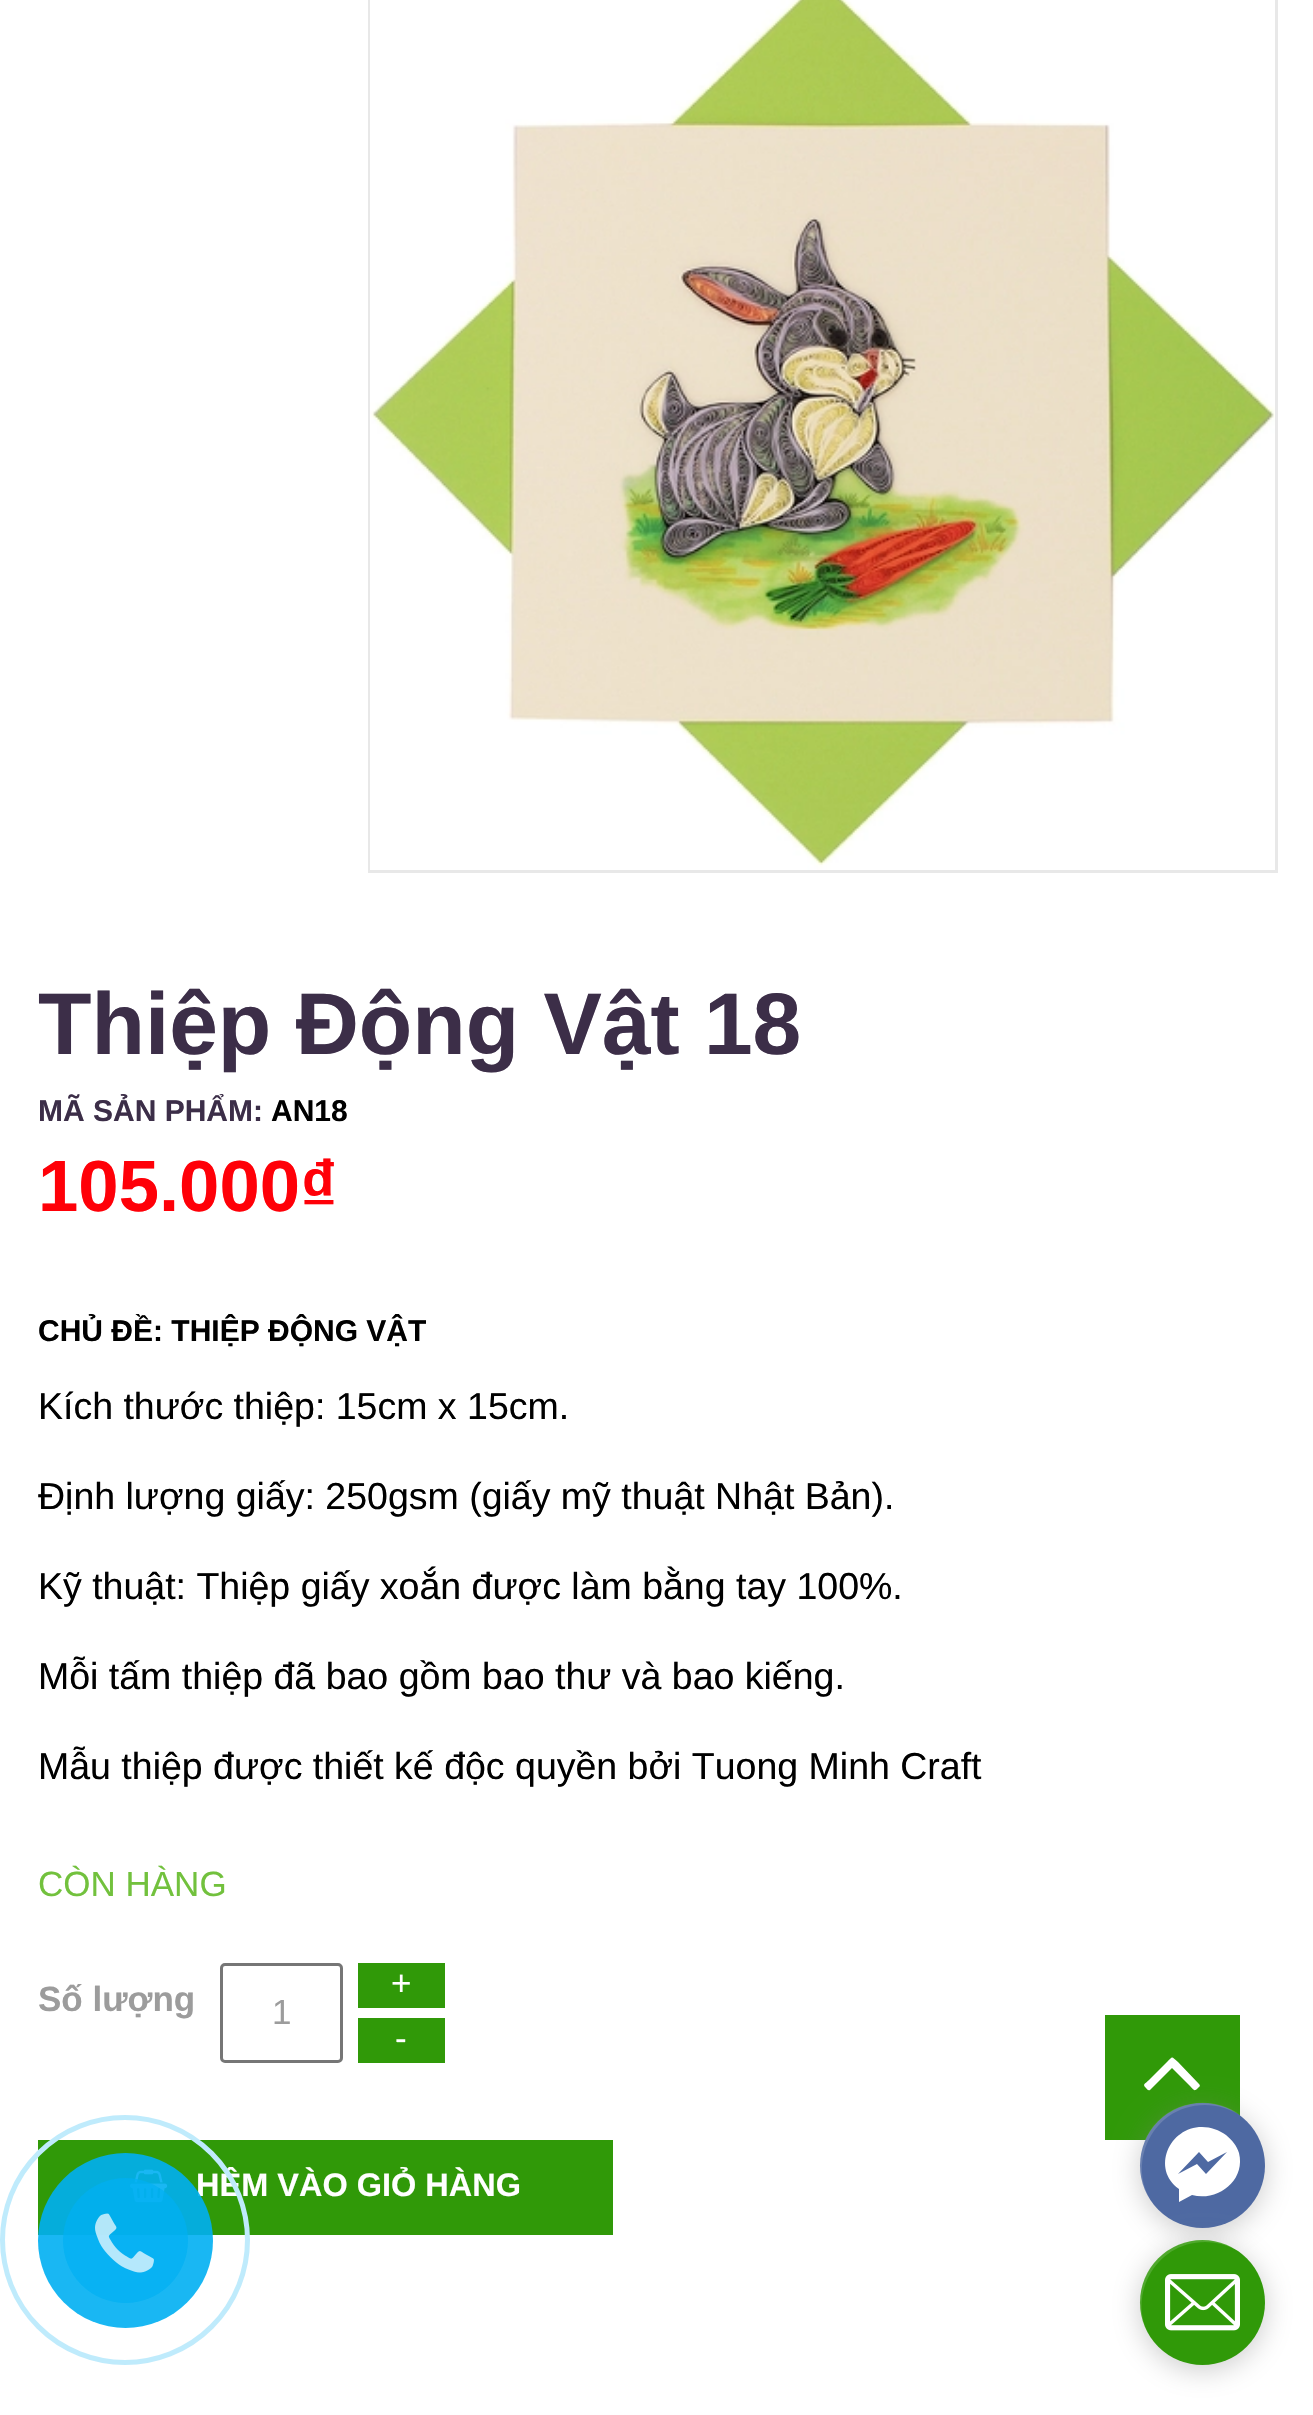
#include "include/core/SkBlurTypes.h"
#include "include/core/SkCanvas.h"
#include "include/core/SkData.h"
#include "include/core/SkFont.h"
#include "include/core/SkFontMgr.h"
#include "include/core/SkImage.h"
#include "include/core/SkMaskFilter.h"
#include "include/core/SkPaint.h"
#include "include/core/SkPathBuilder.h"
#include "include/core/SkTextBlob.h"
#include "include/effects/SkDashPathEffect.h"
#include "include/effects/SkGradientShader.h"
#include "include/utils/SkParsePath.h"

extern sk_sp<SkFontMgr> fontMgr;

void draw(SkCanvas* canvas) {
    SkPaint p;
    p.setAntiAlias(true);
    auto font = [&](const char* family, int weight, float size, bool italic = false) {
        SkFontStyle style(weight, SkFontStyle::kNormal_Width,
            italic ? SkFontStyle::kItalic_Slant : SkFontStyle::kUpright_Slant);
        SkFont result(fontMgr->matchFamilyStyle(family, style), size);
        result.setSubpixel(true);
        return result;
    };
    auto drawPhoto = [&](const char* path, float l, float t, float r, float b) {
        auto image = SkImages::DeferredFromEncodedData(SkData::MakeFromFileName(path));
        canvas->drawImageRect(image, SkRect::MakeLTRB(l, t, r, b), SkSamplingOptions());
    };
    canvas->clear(0xFFFFFFFF);
    p.setStyle(SkPaint::kStroke_Style);
    p.setStrokeWidth(3);
    p.setColor(0xFFE8E8E8);
    canvas->drawRect(SkRect::MakeLTRB(369.5f, -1.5f, 1276.5f, 871.5f), p);
    drawPhoto("media/1.png", 370, 0, 1275, 870);
    auto font1 = font("Liberation Sans", 700, 87.5f);
    p.setStyle(SkPaint::kFill_Style);
    p.setColor(0xFF3C2E48);
    canvas->drawString("Thiệp Động Vật 18", 38, 1054, font1, p);
    auto font2 = font("Liberation Sans", 700, 30);
    canvas->drawString("MÃ SẢN PHẨM:", 38, 1121, font2, p);
    p.setColor(0xFF000000);
    canvas->drawString("AN18", 271, 1121, font2, p);
    auto font3 = font("Liberation Sans", 700, 72.5f);
    p.setColor(0xFFFF0008);
    canvas->drawString("105.000₫", 38, 1211, font3, p);
    p.setColor(0xFF000000);
    canvas->drawString("CHỦ ĐỀ: THIỆP ĐỘNG VẬT", 38, 1341, font2, p);
    auto font4 = font("Liberation Sans", 400, 37.5f);
    {
        const struct { const char* s; float x, y; } items[] = {
            {"Kích thước thiệp: 15cm x 15cm.", 38, 1419},
            {"Định lượng giấy: 250gsm (giấy mỹ thuật Nhật Bản).", 38, 1509},
            {"Kỹ thuật: Thiệp giấy xoắn được làm bằng tay 100%.", 38, 1599},
            {"Mỗi tấm thiệp đã bao gồm bao thư và bao kiếng.", 38, 1689},
            {"Mẫu thiệp được thiết kế độc quyền bởi Tuong Minh Craft", 38, 1779},
        };
        for (auto [s, x, y] : items) {
            canvas->drawString(s, x, y, font4, p);
        }
    }
    auto font5 = font("Liberation Sans", 400, 35);
    p.setColor(0xFF72C13D);
    canvas->drawString("CÒN HÀNG", 38, 1896, font5, p);
    auto font6 = font("Liberation Sans", 700, 35);
    p.setColor(0xFF9C9C9C);
    canvas->drawString("Số lượng", 38, 2011, font6, p);
    p.setColor(0xFF309908);
    canvas->drawRect(SkRect::MakeLTRB(358, 1963, 445, 2008), p);
    p.setColor(0xFFFFFFFF);
    canvas->drawString("+", 391, 1995, font5, p);
    p.setStyle(SkPaint::kStroke_Style);
    p.setColor(0xFF767676);
    canvas->drawRoundRect(SkRect::MakeLTRB(221.5f, 1964.5f, 341.5f, 2061.5f), 3.5f, 3.5f, p);
    p.setStyle(SkPaint::kFill_Style);
    p.setColor(0xFF9C9C9C);
    canvas->drawString("1", 272, 2024, font5, p);
    p.setColor(0xFF309908);
    canvas->drawRect(SkRect::MakeLTRB(358, 2018, 445, 2063), p);
    p.setColor(0xFFFFFFFF);
    canvas->drawString("-", 395, 2050, font5, p);
    p.setColor(0xFF309908);
    canvas->drawRect(SkRect::MakeLTRB(38, 2140, 613, 2235), p);
    drawPhoto("media/2.png", 130, 2169, 168, 2203);
    auto font7 = font("Liberation Sans", 700, 32.5f);
    p.setColor(0xFFFFFFFF);
    canvas->drawString("HÊM VÀO GIỎ HÀNG", 196, 2196, font7, p);
    p.setColor(0xFF309908);
    canvas->drawRect(SkRect::MakeLTRB(1105, 2015, 1240, 2140), p);
    p.setColor(0xFFFFFFFF);
    canvas->drawPath(SkPathBuilder().moveTo(1199, 2084).cubicTo(1201, 2086, 1199, 2087, 1198, 2088).cubicTo(1194, 2092, 1194, 2090, 1190, 2086).lineTo(1172, 2068).lineTo(1150, 2090).cubicTo(1148, 2091, 1147, 2089, 1146, 2088).cubicTo(1142, 2084, 1145, 2084, 1149, 2080).lineTo(1167, 2062).cubicTo(1173, 2056, 1171, 2056, 1178, 2062).close().detach(), p);
    p.setStyle(SkPaint::kStroke_Style);
    p.setStrokeWidth(5);
    p.setColor(0xFFBFEBFC);
    canvas->drawCircle(125, 2240, 122.5f, p);
    p.setStyle(SkPaint::kFill_Style);
    p.setColor(0xE600AFF2);
    canvas->drawCircle(125.5f, 2240.5f, 87.5f, p);
    p.setColor(0xB300AFF2);
    canvas->drawCircle(125.5f, 2240.5f, 62.5f, p);
    drawPhoto("media/3.png", 95, 2213, 154, 2273);
    p.setColor(0x66808080);
    p.setMaskFilter(SkMaskFilter::MakeBlur(kNormal_SkBlurStyle, 14));
    canvas->drawRoundRect(SkRect::MakeLTRB(1140, 2108, 1265, 2233), 62.5f, 62.5f, p);
    p.setMaskFilter(nullptr);
    p.setColor(0xFF4E69A2);
    canvas->drawCircle(1202.5f, 2165.5f, 62.5f, p);
    p.setColor(0x26FFFFFF);
    canvas->drawPath(SkPathBuilder().moveTo(1205, 2105).cubicTo(1218, 2105, 1230, 2109, 1240, 2115).cubicTo(1216, 2097, 1180, 2099, 1158, 2121).cubicTo(1133, 2146, 1134, 2187, 1159, 2211).cubicTo(1122, 2172, 1149, 2105, 1205, 2105).close().detach(), p);
    p.setColor(0xFFFFFFFF);
    canvas->drawPath(SkPathBuilder().moveTo(1202, 2127).cubicTo(1169, 2127, 1151, 2169, 1179, 2189).lineTo(1179, 2202).lineTo(1192, 2195).cubicTo(1217, 2202, 1246, 2181, 1239, 2153).cubicTo(1237, 2146, 1232, 2140, 1226, 2135).cubicTo(1219, 2130, 1211, 2127, 1202, 2127).close().moveTo(1206, 2174).lineTo(1197, 2164).lineTo(1178, 2174).lineTo(1199, 2152).lineTo(1208, 2162).lineTo(1227, 2152).close().detach(), p);
    p.setColor(0x66808080);
    p.setMaskFilter(SkMaskFilter::MakeBlur(kNormal_SkBlurStyle, 14));
    canvas->drawRoundRect(SkRect::MakeLTRB(1140, 2245, 1265, 2370), 62.5f, 62.5f, p);
    p.setMaskFilter(nullptr);
    p.setColor(0xFF309908);
    canvas->drawCircle(1202.5f, 2302.5f, 62.5f, p);
    p.setColor(0x26FFFFFF);
    canvas->drawPath(SkPathBuilder().moveTo(1205, 2242).cubicTo(1218, 2242, 1230, 2246, 1240, 2252).cubicTo(1216, 2234, 1180, 2236, 1158, 2258).cubicTo(1136, 2280, 1134, 2316, 1152, 2340).cubicTo(1125, 2299, 1154, 2242, 1205, 2242).close().detach(), p);
    drawPhoto("media/4.png", 1165, 2274, 1240, 2331);
}
